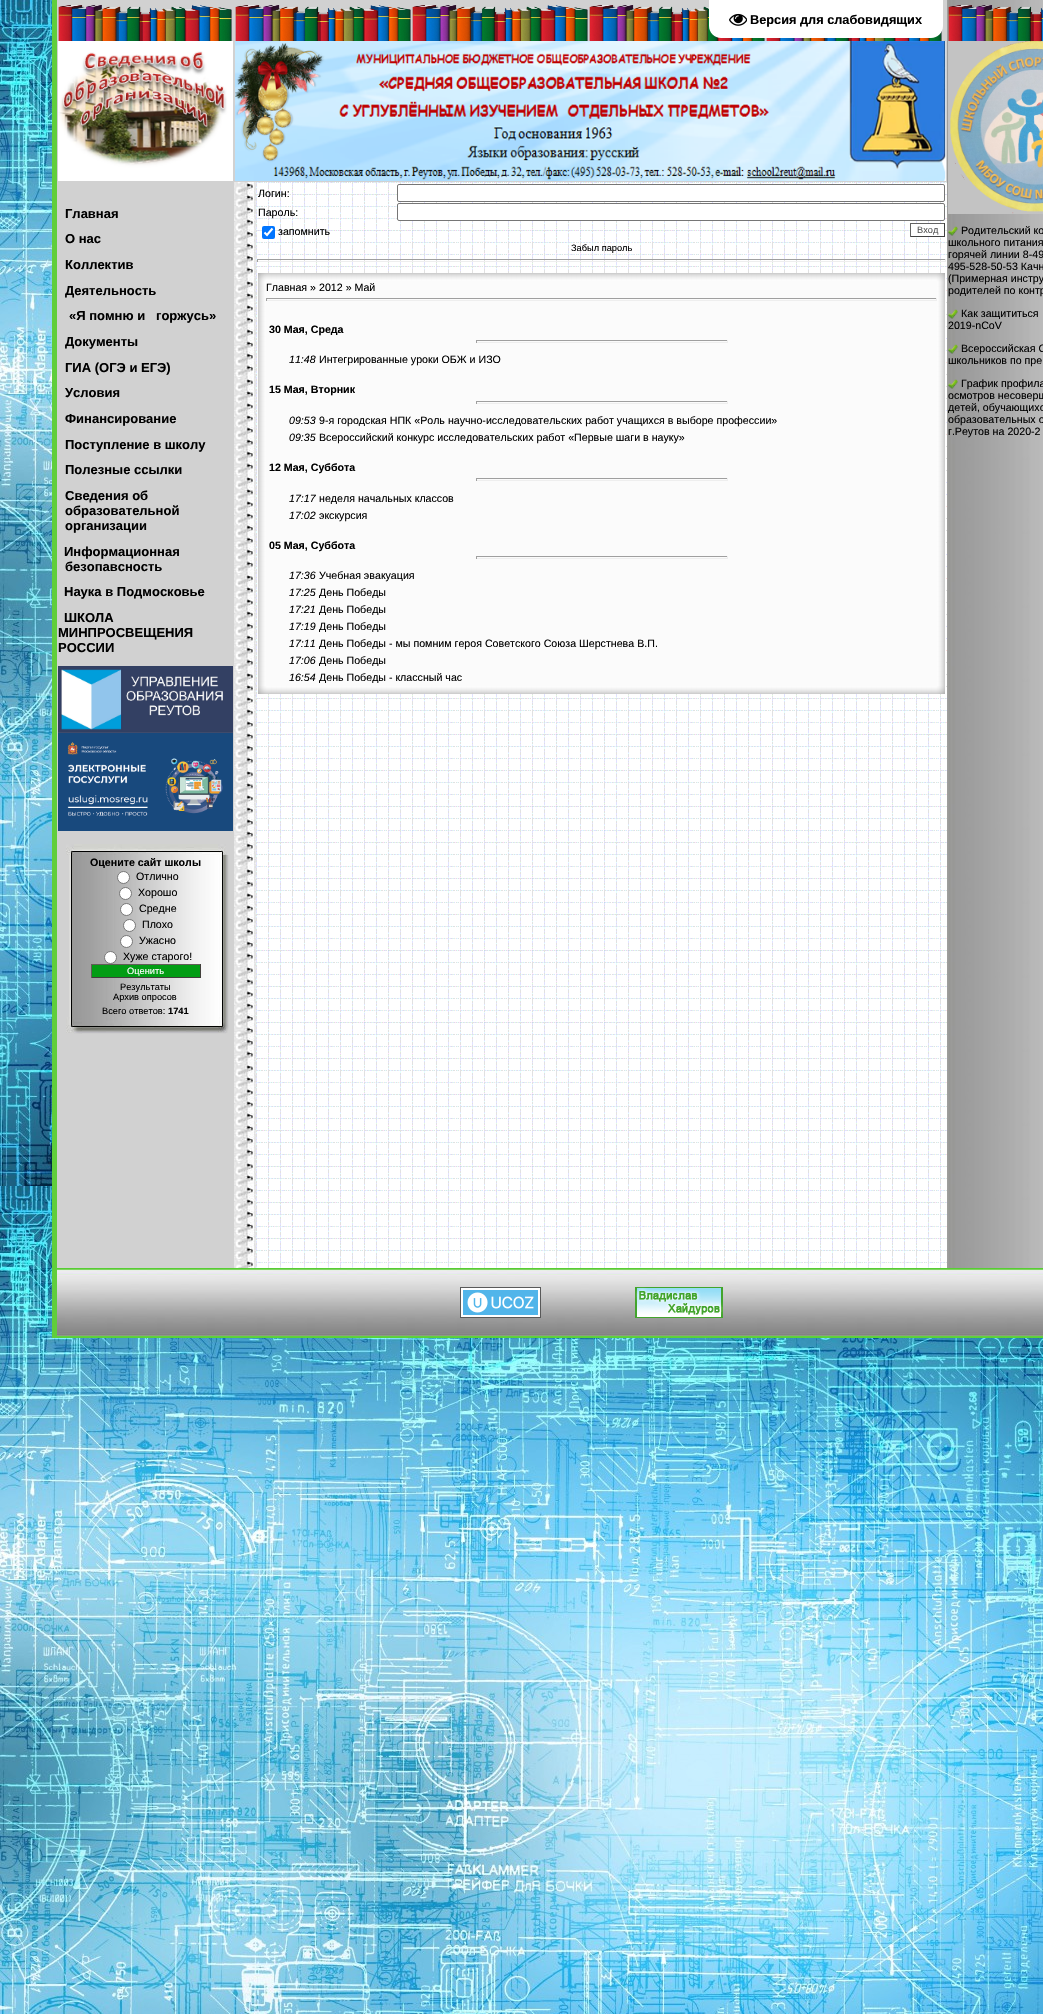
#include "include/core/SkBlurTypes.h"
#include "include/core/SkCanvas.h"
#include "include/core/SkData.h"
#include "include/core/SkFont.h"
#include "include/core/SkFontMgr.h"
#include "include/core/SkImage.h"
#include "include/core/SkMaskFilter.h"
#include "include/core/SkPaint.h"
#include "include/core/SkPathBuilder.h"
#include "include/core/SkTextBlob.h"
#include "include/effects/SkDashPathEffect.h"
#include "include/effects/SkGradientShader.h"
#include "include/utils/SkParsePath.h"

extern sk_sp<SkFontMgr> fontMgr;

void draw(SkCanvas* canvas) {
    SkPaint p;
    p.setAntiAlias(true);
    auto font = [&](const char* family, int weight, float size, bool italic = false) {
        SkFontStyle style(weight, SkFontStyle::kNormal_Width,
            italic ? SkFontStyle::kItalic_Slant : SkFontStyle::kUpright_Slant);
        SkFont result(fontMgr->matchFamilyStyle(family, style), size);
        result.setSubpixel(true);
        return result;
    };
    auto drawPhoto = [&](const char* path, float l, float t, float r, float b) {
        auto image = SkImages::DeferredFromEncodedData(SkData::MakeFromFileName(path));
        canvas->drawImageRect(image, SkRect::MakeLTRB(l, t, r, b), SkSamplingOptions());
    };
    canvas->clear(0xFFFFFFFF);
    drawPhoto("media/1.png", 0, 0, 1043, 2014);
    p.setColor(0xFFD1D1D1);
    canvas->drawRect(SkRect::MakeLTRB(57, 0, 947, 1268), p);
    drawPhoto("media/22.png", 589, 5, 765, 41);
    drawPhoto("media/23.png", 766, 30, 942, 41);
    p.setColor(0xFFFFFFFF);
    canvas->drawPath(SkPathBuilder().moveTo(709, 0).lineTo(943, 0).lineTo(943, 26).cubicTo(943, 32.5f, 937.5f, 38, 931, 38).lineTo(721, 38).cubicTo(714.5f, 38, 709, 32.5f, 709, 26).close().detach(), p);
    drawPhoto("media/2.png", 729, 13, 747, 26);
    auto font1 = font("Liberation Sans", 700, 12.75f);
    p.setColor(0xFF000000);
    canvas->drawString("Версия для слабовидящих", 750, 24, font1, p);
    auto font2 = font("Liberation Sans", 700, 13);
    {
        const struct { const char* s; float x, y; } items[] = {
            {"Главная", 65, 218},
            {"О нас", 65, 243},
            {"Коллектив", 65, 269},
            {"Деятельность", 65, 295},
            {"«Я помню и   горжусь»", 69, 320},
            {"Документы", 65, 346},
            {"ГИА (ОГЭ и ЕГЭ)", 65, 372},
            {"Условия", 65, 397},
            {"Финансирование", 65, 423},
            {"Поступление в школу", 65, 449},
            {"Полезные ссылки", 65, 474},
            {"Сведения об", 65, 500},
            {"образовательной", 65, 515},
            {"организации", 65, 530},
            {"Информационная", 64, 556},
            {"безопавсность", 65, 571},
            {"Наука в Подмосковье", 64, 596},
            {"ШКОЛА", 64, 622},
            {"МИНПРОСВЕЩЕНИЯ", 58, 637},
            {"РОССИИ", 58, 652},
        };
        for (auto [s, x, y] : items) {
            canvas->drawString(s, x, y, font2, p);
        }
    }
    drawPhoto("media/3.png", 58, 666, 233, 733);
    drawPhoto("media/4.png", 58, 733, 233, 831);
    drawPhoto("media/5.png", 66, 844, 227, 855);
    drawPhoto("media/6.png", 69, 855, 229, 1017);
    auto font3 = font("Liberation Sans", 700, 10.65f);
    canvas->drawString("Оцените сайт школы", 90, 866, font3, p);
    p.setColor(0xFFFFFFFF);
    canvas->drawCircle(123.5f, 877.5f, 6, p);
    p.setStyle(SkPaint::kStroke_Style);
    p.setStrokeWidth(1);
    p.setColor(0xFF767676);
    canvas->drawCircle(123.5f, 877.5f, 6, p);
    auto font4 = font("Liberation Sans", 400, 10.65f);
    p.setStyle(SkPaint::kFill_Style);
    p.setColor(0xFF000000);
    canvas->drawString("Отлично", 136, 880, font4, p);
    p.setColor(0xFFFFFFFF);
    canvas->drawCircle(125.5f, 893.5f, 6, p);
    p.setStyle(SkPaint::kStroke_Style);
    p.setColor(0xFF767676);
    canvas->drawCircle(125.5f, 893.5f, 6, p);
    p.setStyle(SkPaint::kFill_Style);
    p.setColor(0xFF000000);
    canvas->drawString("Хорошо", 138, 896, font4, p);
    p.setColor(0xFFFFFFFF);
    canvas->drawCircle(126.5f, 909.5f, 6, p);
    p.setStyle(SkPaint::kStroke_Style);
    p.setColor(0xFF767676);
    canvas->drawCircle(126.5f, 909.5f, 6, p);
    p.setStyle(SkPaint::kFill_Style);
    p.setColor(0xFF000000);
    canvas->drawString("Средне", 139, 912, font4, p);
    p.setColor(0xFFFFFFFF);
    canvas->drawCircle(129.5f, 925.5f, 6, p);
    p.setStyle(SkPaint::kStroke_Style);
    p.setColor(0xFF767676);
    canvas->drawCircle(129.5f, 925.5f, 6, p);
    p.setStyle(SkPaint::kFill_Style);
    p.setColor(0xFF000000);
    canvas->drawString("Плохо", 142, 928, font4, p);
    p.setColor(0xFFFFFFFF);
    canvas->drawCircle(126.5f, 941.5f, 6, p);
    p.setStyle(SkPaint::kStroke_Style);
    p.setColor(0xFF767676);
    canvas->drawCircle(126.5f, 941.5f, 6, p);
    p.setStyle(SkPaint::kFill_Style);
    p.setColor(0xFF000000);
    canvas->drawString("Ужасно", 139, 944, font4, p);
    p.setColor(0xFFFFFFFF);
    canvas->drawCircle(110.5f, 957.5f, 6, p);
    p.setStyle(SkPaint::kStroke_Style);
    p.setColor(0xFF767676);
    canvas->drawCircle(110.5f, 957.5f, 6, p);
    p.setStyle(SkPaint::kFill_Style);
    p.setColor(0xFF000000);
    canvas->drawString("Хуже старого!", 123, 960, font4, p);
    {
        const struct { float l, t, r, b; SkColor color; } items[] = {
            {92, 965, 200, 977, 0xFF029D14},
            {91, 964, 201, 965, 0xFF615E58},
            {200, 964, 201, 978, 0xFF413F3B},
            {91, 977, 201, 978, 0xFF413F3B},
            {91, 964, 92, 978, 0xFF615E58},
        };
        for (auto [l, t, r, b, color] : items) {
            p.setColor(color);
            canvas->drawRect(SkRect::MakeLTRB(l, t, r, b), p);
        }
    }
    auto font5 = font("Liberation Sans", 400, 9.25f);
    p.setColor(0xFFFFFFFF);
    canvas->drawString("Оценить", 127, 974, font5, p);
    p.setColor(0xFF000000);
    {
        const struct { const char* s; float x, y; } items[] = {
            {"Результаты", 120, 990},
            {"Архив опросов", 113, 1000},
            {"Всего ответов:", 102, 1014},
        };
        for (auto [s, x, y] : items) {
            canvas->drawString(s, x, y, font5, p);
        }
    }
    auto font6 = font("Liberation Sans", 700, 9.25f);
    canvas->drawString("1741", 168, 1014, font6, p);
    drawPhoto("media/7.png", 66, 1017, 229, 1034);
    drawPhoto("media/8.png", 234, 182, 256, 1268);
    drawPhoto("media/9.png", 256, 182, 947, 1268);
    canvas->drawString("Логин:", 258, 197, font4, p);
    p.setColor(0xFFFFFFFF);
    canvas->drawRoundRect(SkRect::MakeLTRB(397.5f, 184.5f, 944.5f, 201.5f), 1.5f, 1.5f, p);
    p.setStyle(SkPaint::kStroke_Style);
    p.setColor(0xFF767676);
    canvas->drawRoundRect(SkRect::MakeLTRB(397.5f, 184.5f, 944.5f, 201.5f), 1.5f, 1.5f, p);
    p.setStyle(SkPaint::kFill_Style);
    p.setColor(0xFF000000);
    canvas->drawString("Пароль:", 258, 216, font4, p);
    p.setColor(0xFFFFFFFF);
    canvas->drawRoundRect(SkRect::MakeLTRB(397.5f, 203.5f, 944.5f, 220.5f), 1.5f, 1.5f, p);
    p.setStyle(SkPaint::kStroke_Style);
    p.setColor(0xFF767676);
    canvas->drawRoundRect(SkRect::MakeLTRB(397.5f, 203.5f, 944.5f, 220.5f), 1.5f, 1.5f, p);
    p.setStyle(SkPaint::kFill_Style);
    p.setColor(0xFF0075FF);
    canvas->drawRoundRect(SkRect::MakeLTRB(262, 226, 275, 239), 2, 2, p);
    p.setStyle(SkPaint::kStroke_Style);
    p.setStrokeWidth(2.1f);
    p.setColor(0xFFFFFFFF);
    canvas->drawPath(SkPathBuilder().moveTo(264.5f, 232.5f).lineTo(267, 235).lineTo(272.5f, 228.5f).detach(), p);
    p.setStyle(SkPaint::kFill_Style);
    p.setColor(0xFF000000);
    canvas->drawString("запомнить", 278, 235, font4, p);
    {
        const struct { float l, t, r, b; SkColor color; } items[] = {
            {911, 224, 944, 236, 0xFFFFFFFF},
            {910, 223, 945, 224, 0xFF636363},
            {944, 223, 945, 237, 0xFF424242},
            {910, 236, 945, 237, 0xFF424242},
            {910, 223, 911, 237, 0xFF636363},
        };
        for (auto [l, t, r, b, color] : items) {
            p.setColor(color);
            canvas->drawRect(SkRect::MakeLTRB(l, t, r, b), p);
        }
    }
    p.setColor(0xFF575757);
    canvas->drawString("Вход", 917, 233, font5, p);
    p.setColor(0xFF000000);
    canvas->drawString("Забыл пароль", 571, 251, font5, p);
    {
        const struct { float l, t, r, b; SkColor color; } items[] = {
            {257, 259, 946, 260, 0xFF9F9F9F},
            {945, 259, 946, 262, 0xFFEEEEEE},
            {257, 261, 946, 262, 0xFFEEEEEE},
            {257, 259, 258, 262, 0xFF9F9F9F},
            {945, 273, 946, 694, 0xFFFFFFFF},
            {257, 273, 258, 694, 0xFFFFFFFF},
        };
        for (auto [l, t, r, b, color] : items) {
            p.setColor(color);
            canvas->drawRect(SkRect::MakeLTRB(l, t, r, b), p);
        }
    }
    drawPhoto("media/10.png", 258, 273, 266, 281);
    drawPhoto("media/11.png", 266, 273, 937, 281);
    drawPhoto("media/12.png", 937, 273, 945, 281);
    drawPhoto("media/13.png", 258, 281, 266, 686);
    p.setColor(0xFFFBFBFB);
    canvas->drawRect(SkRect::MakeLTRB(266, 281, 937, 686), p);
    p.setColor(0xFF000000);
    canvas->drawString("Главная » 2012 » Май", 266, 291, font4, p);
    {
        const struct { float l, t, r, b; SkColor color; } items[] = {
            {266, 298, 937, 299, 0xFF9F9F9F},
            {936, 298, 937, 301, 0xFFEEEEEE},
            {266, 300, 937, 301, 0xFFEEEEEE},
            {266, 298, 267, 301, 0xFF9F9F9F},
        };
        for (auto [l, t, r, b, color] : items) {
            p.setColor(color);
            canvas->drawRect(SkRect::MakeLTRB(l, t, r, b), p);
        }
    }
    p.setColor(0xFF000000);
    canvas->drawString("30 Мая, Среда", 269, 333, font3, p);
    {
        const struct { float l, t, r, b; SkColor color; } items[] = {
            {476, 340, 728, 341, 0xFF9F9F9F},
            {727, 340, 728, 343, 0xFFEEEEEE},
            {476, 342, 728, 343, 0xFFEEEEEE},
            {476, 340, 477, 343, 0xFF9F9F9F},
        };
        for (auto [l, t, r, b, color] : items) {
            p.setColor(color);
            canvas->drawRect(SkRect::MakeLTRB(l, t, r, b), p);
        }
    }
    auto font7 = font("Liberation Sans", 400, 10.65f, true);
    p.setColor(0xFF000000);
    canvas->drawString("11:48", 289, 363, font7, p);
    canvas->drawString("Интегрированные уроки ОБЖ и ИЗО", 319, 363, font4, p);
    canvas->drawString("15 Мая, Вторник", 269, 393, font3, p);
    {
        const struct { float l, t, r, b; SkColor color; } items[] = {
            {476, 401, 728, 402, 0xFF9F9F9F},
            {727, 401, 728, 404, 0xFFEEEEEE},
            {476, 403, 728, 404, 0xFFEEEEEE},
            {476, 401, 477, 404, 0xFF9F9F9F},
        };
        for (auto [l, t, r, b, color] : items) {
            p.setColor(color);
            canvas->drawRect(SkRect::MakeLTRB(l, t, r, b), p);
        }
    }
    p.setColor(0xFF000000);
    canvas->drawString("09:53", 289, 424, font7, p);
    canvas->drawString("9-я городская НПК «Роль научно-исследовательских работ учащихся в выборе профессии»", 319, 424, font4, p);
    canvas->drawString("09:35", 289, 441, font7, p);
    canvas->drawString("Всероссийский конкурс исследовательских работ «Первые шаги в науку»", 319, 441, font4, p);
    canvas->drawString("12 Мая, Суббота", 269, 471, font3, p);
    {
        const struct { float l, t, r, b; SkColor color; } items[] = {
            {476, 478, 728, 479, 0xFF9F9F9F},
            {727, 478, 728, 481, 0xFFEEEEEE},
            {476, 480, 728, 481, 0xFFEEEEEE},
            {476, 478, 477, 481, 0xFF9F9F9F},
        };
        for (auto [l, t, r, b, color] : items) {
            p.setColor(color);
            canvas->drawRect(SkRect::MakeLTRB(l, t, r, b), p);
        }
    }
    p.setColor(0xFF000000);
    canvas->drawString("17:17", 289, 502, font7, p);
    canvas->drawString("неделя начальных классов", 319, 502, font4, p);
    canvas->drawString("17:02", 289, 519, font7, p);
    canvas->drawString("экскурсия", 319, 519, font4, p);
    canvas->drawString("05 Мая, Суббота", 269, 549, font3, p);
    {
        const struct { float l, t, r, b; SkColor color; } items[] = {
            {476, 556, 728, 557, 0xFF9F9F9F},
            {727, 556, 728, 559, 0xFFEEEEEE},
            {476, 558, 728, 559, 0xFFEEEEEE},
            {476, 556, 477, 559, 0xFF9F9F9F},
        };
        for (auto [l, t, r, b, color] : items) {
            p.setColor(color);
            canvas->drawRect(SkRect::MakeLTRB(l, t, r, b), p);
        }
    }
    p.setColor(0xFF000000);
    canvas->drawString("17:36", 289, 579, font7, p);
    canvas->drawString("Учебная эвакуация", 319, 579, font4, p);
    canvas->drawString("17:25", 289, 596, font7, p);
    canvas->drawString("День Победы", 319, 596, font4, p);
    canvas->drawString("17:21", 289, 613, font7, p);
    canvas->drawString("День Победы", 319, 613, font4, p);
    canvas->drawString("17:19", 289, 630, font7, p);
    canvas->drawString("День Победы", 319, 630, font4, p);
    canvas->drawString("17:11", 289, 647, font7, p);
    canvas->drawString("День Победы - мы помним героя Советского Союза Шерстнева В.П.", 319, 647, font4, p);
    canvas->drawString("17:06", 289, 664, font7, p);
    canvas->drawString("День Победы", 319, 664, font4, p);
    canvas->drawString("16:54", 289, 681, font7, p);
    canvas->drawString("День Победы - классный час", 319, 681, font4, p);
    drawPhoto("media/14.png", 937, 281, 945, 686);
    drawPhoto("media/15.png", 258, 686, 266, 694);
    drawPhoto("media/16.png", 266, 686, 937, 694);
    drawPhoto("media/17.png", 937, 686, 945, 694);
    p.setColor(0xFF60CE3B);
    canvas->drawRect(SkRect::MakeLTRB(52, 0, 57, 1338), p);
    drawPhoto("media/18.png", 58, 4, 232, 41);
    drawPhoto("media/19.png", 58, 41, 233, 181);
    drawPhoto("media/20.png", 235, 5, 411, 41);
    drawPhoto("media/21.png", 412, 5, 588, 41);
    drawPhoto("media/24.png", 235, 41, 946, 181);
    drawPhoto("media/25.png", 947, 0, 1043, 1268);
    drawPhoto("media/26.png", 948, 5, 1043, 41);
    drawPhoto("media/27.png", 948, 41, 1043, 214);
    drawPhoto("media/28.png", 948, 226, 958, 236);
    p.setColor(0xFF000000);
    {
        const struct { const char* s; float x, y; } items[] = {
            {"Родительский ко", 961, 234},
            {"школьного питания", 948, 246},
            {"горячей линии 8-49", 948, 258},
            {"495-528-50-53 Качн", 948, 270},
            {"(Примерная инстру", 948, 282},
            {"родителей по контр", 948, 294},
        };
        for (auto [s, x, y] : items) {
            canvas->drawString(s, x, y, font4, p);
        }
    }
    drawPhoto("media/28.png", 948, 309, 958, 319);
    canvas->drawString("Как защититься", 961, 317, font4, p);
    canvas->drawString("2019-nCoV", 948, 329, font4, p);
    drawPhoto("media/28.png", 948, 344, 958, 354);
    canvas->drawString("Всероссийская О", 961, 352, font4, p);
    canvas->drawString("школьников по пре", 948, 364, font4, p);
    drawPhoto("media/28.png", 948, 379, 958, 389);
    {
        const struct { const char* s; float x, y; } items[] = {
            {"График профила", 961, 387},
            {"осмотров несоверш", 948, 399},
            {"детей, обучающихс", 948, 411},
            {"образовательных о", 948, 423},
            {"г.Реутов на 2020-2", 948, 435},
        };
        for (auto [s, x, y] : items) {
            canvas->drawString(s, x, y, font4, p);
        }
    }
    drawPhoto("media/29.png", 57, 1268, 1043, 1338);
    drawPhoto("media/30.png", 460, 1287, 541, 1318);
    drawPhoto("media/31.png", 635, 1287, 723, 1318);
}
